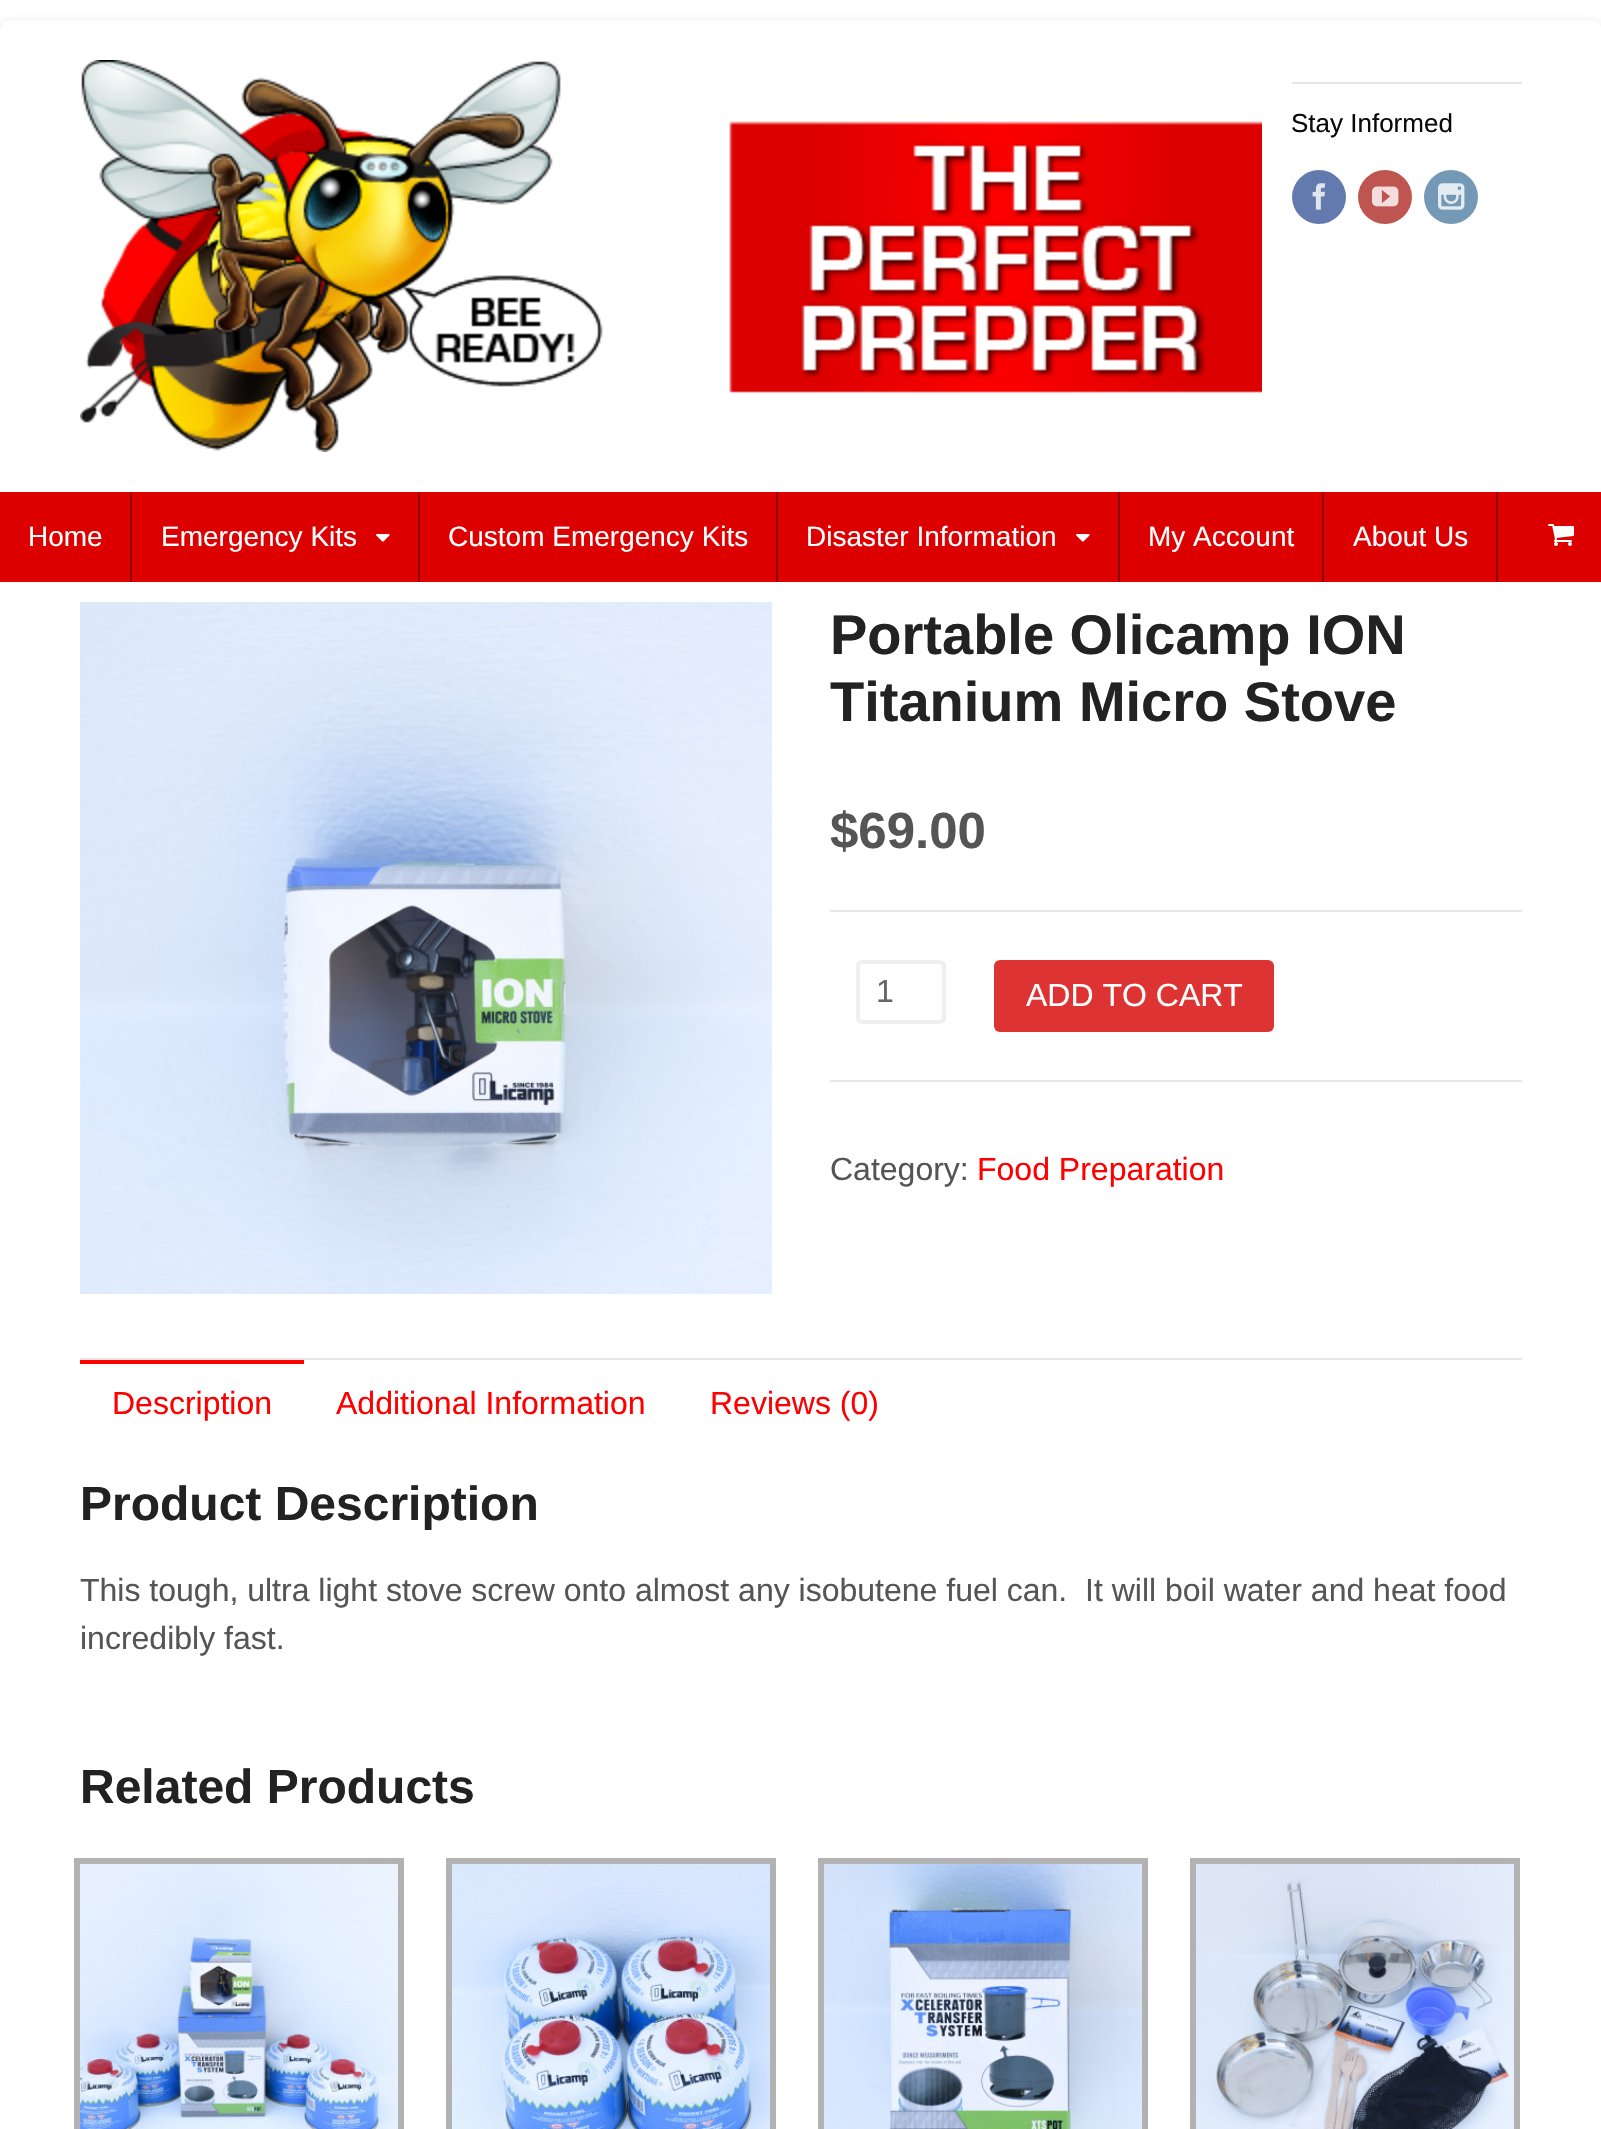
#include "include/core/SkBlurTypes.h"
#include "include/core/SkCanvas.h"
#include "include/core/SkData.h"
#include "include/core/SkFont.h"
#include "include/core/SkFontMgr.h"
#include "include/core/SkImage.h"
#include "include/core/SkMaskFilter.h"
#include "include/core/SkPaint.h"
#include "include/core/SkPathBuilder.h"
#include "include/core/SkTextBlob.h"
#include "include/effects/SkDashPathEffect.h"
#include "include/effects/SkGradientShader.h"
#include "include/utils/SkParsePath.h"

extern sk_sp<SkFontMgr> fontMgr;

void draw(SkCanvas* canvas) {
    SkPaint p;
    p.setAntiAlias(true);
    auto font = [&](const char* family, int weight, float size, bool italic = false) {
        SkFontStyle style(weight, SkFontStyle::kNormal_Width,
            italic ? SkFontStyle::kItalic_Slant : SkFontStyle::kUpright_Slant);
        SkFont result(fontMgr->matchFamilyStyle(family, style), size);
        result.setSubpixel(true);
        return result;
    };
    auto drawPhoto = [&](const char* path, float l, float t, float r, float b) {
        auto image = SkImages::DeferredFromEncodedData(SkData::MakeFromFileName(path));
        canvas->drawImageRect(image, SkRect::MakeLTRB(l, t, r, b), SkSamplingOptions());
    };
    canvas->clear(0xFFFFFFFF);
    p.setColor(0x1A000000);
    p.setMaskFilter(SkMaskFilter::MakeBlur(kNormal_SkBlurStyle, 5));
    canvas->drawRoundRect(SkRect::MakeLTRB(0, 22, 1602, 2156), 12, 12, p);
    p.setMaskFilter(nullptr);
    p.setColor(0xFFFFFFFF);
    canvas->drawRoundRect(SkRect::MakeLTRB(0, 20, 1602, 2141), 12, 12, p);
    drawPhoto("media/1.png", 80, 60, 1262, 452);
    p.setColor(0xFFE6E6E6);
    canvas->drawRect(SkRect::MakeLTRB(1292, 82, 1522, 84), p);
    auto font1 = font("Liberation Sans", 400, 26);
    p.setColor(0xFF0A0A0A);
    canvas->drawString("Stay Informed", 1291, 132, font1, p);
    p.setColor(0xFF627AAD);
    canvas->drawCircle(1319, 197, 27, p);
    drawPhoto("media/2.png", 1312, 183, 1325, 210);
    p.setColor(0xFFBF5551);
    canvas->drawCircle(1385, 197, 27, p);
    drawPhoto("media/3.png", 1372, 186, 1399, 207);
    p.setColor(0xFF7499B6);
    canvas->drawCircle(1451, 197, 27, p);
    drawPhoto("media/4.png", 1438, 183, 1465, 210);
    p.setColor(0xFFDC0000);
    canvas->drawRect(SkRect::MakeLTRB(0, 492, 1601, 582), p);
    p.setColor(0xFF890000);
    canvas->drawRect(SkRect::MakeLTRB(130, 492, 132, 582), p);
    auto font2 = font("Liberation Sans", 400, 28);
    p.setColor(0xFFFFFFFF);
    canvas->drawString("Home", 28, 546, font2, p);
    p.setColor(0xFF890000);
    canvas->drawRect(SkRect::MakeLTRB(418, 492, 420, 582), p);
    p.setColor(0xFFFFFFFF);
    canvas->drawString("Emergency Kits", 161, 546, font2, p);
    drawPhoto("media/5.png", 376, 534, 390, 542);
    p.setColor(0xFF890000);
    canvas->drawRect(SkRect::MakeLTRB(776, 492, 778, 582), p);
    p.setColor(0xFFFFFFFF);
    canvas->drawString("Custom Emergency Kits", 448, 546, font2, p);
    p.setColor(0xFF890000);
    canvas->drawRect(SkRect::MakeLTRB(1118, 492, 1120, 582), p);
    p.setColor(0xFFFFFFFF);
    canvas->drawString("Disaster Information", 806, 546, font2, p);
    drawPhoto("media/5.png", 1076, 534, 1090, 542);
    p.setColor(0xFF890000);
    canvas->drawRect(SkRect::MakeLTRB(1322, 492, 1324, 582), p);
    p.setColor(0xFFFFFFFF);
    canvas->drawString("My Account", 1148, 546, font2, p);
    p.setColor(0xFF890000);
    canvas->drawRect(SkRect::MakeLTRB(1496, 492, 1498, 582), p);
    p.setColor(0xFFFFFFFF);
    canvas->drawString("About Us", 1353, 546, font2, p);
    drawPhoto("media/6.png", 1548, 524, 1574, 546);
    drawPhoto("media/7.png", 80, 602, 772, 1294);
    auto font3 = font("Liberation Sans", 700, 56);
    p.setColor(0xFF222222);
    canvas->drawString("Portable Olicamp ION", 830, 654, font3, p);
    canvas->drawString("Titanium Micro Stove", 830, 721, font3, p);
    auto font4 = font("Liberation Sans", 700, 51);
    p.setColor(0xFF555555);
    canvas->drawString("$69.00", 830, 848, font4, p);
    p.setColor(0xFFE6E6E6);
    canvas->drawRect(SkRect::MakeLTRB(830, 910, 1522, 912), p);
    canvas->drawRect(SkRect::MakeLTRB(830, 1080, 1522, 1082), p);
    p.setStyle(SkPaint::kStroke_Style);
    p.setStrokeWidth(4);
    p.setColor(0xFFEFEFEF);
    canvas->drawRoundRect(SkRect::MakeLTRB(858, 962, 944, 1022), 4, 4, p);
    auto font5 = font("Liberation Sans", 400, 32);
    p.setStyle(SkPaint::kFill_Style);
    p.setColor(0xFF666666);
    canvas->drawString("1", 876, 1002, font5, p);
    p.setColor(0xFFDD3333);
    canvas->drawRoundRect(SkRect::MakeLTRB(994, 960, 1274, 1032), 6, 6, p);
    p.setColor(0xFFFFFFFF);
    canvas->drawString("ADD TO CART", 1026, 1006, font5, p);
    p.setColor(0xFF555555);
    canvas->drawString("Category:", 830, 1180, font5, p);
    p.setColor(0xFFFF0000);
    canvas->drawString("Food Preparation", 977, 1180, font5, p);
    p.setColor(0xFFE6E6E6);
    canvas->drawRect(SkRect::MakeLTRB(80, 1358, 1522, 1360), p);
    p.setColor(0xFFFF0000);
    canvas->drawRect(SkRect::MakeLTRB(80, 1360, 304, 1364), p);
    {
        const struct { const char* s; float x, y; } items[] = {
            {"Description", 112, 1414},
            {"Additional Information", 336, 1414},
            {"Reviews (0)", 710, 1414},
        };
        for (auto [s, x, y] : items) {
            canvas->drawString(s, x, y, font5, p);
        }
    }
    auto font6 = font("Liberation Sans", 700, 48);
    p.setColor(0xFF222222);
    canvas->drawString("Product Description", 80, 1520, font6, p);
    p.setColor(0xFF555555);
    canvas->drawString("This tough, ultra light stove screw onto almost any isobutene fuel can.  It will boil water and heat food", 80, 1601, font5, p);
    canvas->drawString("incredibly fast.", 80, 1649, font5, p);
    p.setColor(0xFF222222);
    canvas->drawString("Related Products", 80, 1803, font6, p);
    drawPhoto("media/8.png", 80, 1864, 398, 2129);
    p.setStyle(SkPaint::kStroke_Style);
    p.setStrokeWidth(6);
    p.setColor(0xFFB2B2B2);
    canvas->drawRect(SkRect::MakeLTRB(77, 1861, 401, 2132), p);
    drawPhoto("media/9.png", 452, 1864, 770, 2129);
    canvas->drawRect(SkRect::MakeLTRB(449, 1861, 773, 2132), p);
    drawPhoto("media/10.png", 824, 1864, 1142, 2129);
    canvas->drawRect(SkRect::MakeLTRB(821, 1861, 1145, 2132), p);
    drawPhoto("media/11.png", 1196, 1864, 1514, 2129);
    canvas->drawRect(SkRect::MakeLTRB(1193, 1861, 1517, 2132), p);
}
